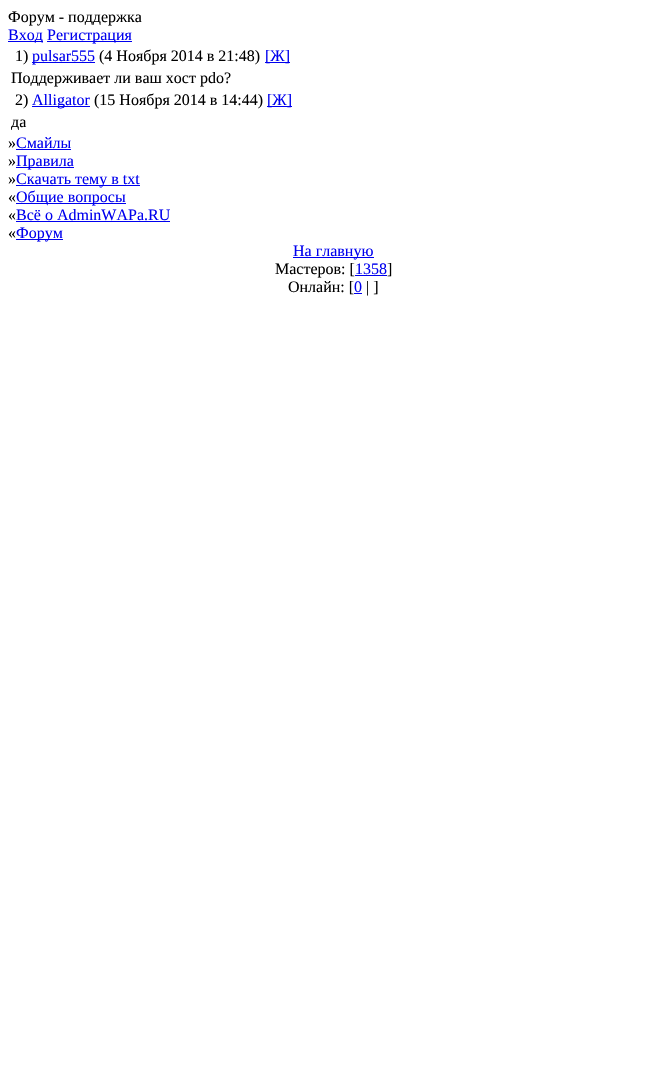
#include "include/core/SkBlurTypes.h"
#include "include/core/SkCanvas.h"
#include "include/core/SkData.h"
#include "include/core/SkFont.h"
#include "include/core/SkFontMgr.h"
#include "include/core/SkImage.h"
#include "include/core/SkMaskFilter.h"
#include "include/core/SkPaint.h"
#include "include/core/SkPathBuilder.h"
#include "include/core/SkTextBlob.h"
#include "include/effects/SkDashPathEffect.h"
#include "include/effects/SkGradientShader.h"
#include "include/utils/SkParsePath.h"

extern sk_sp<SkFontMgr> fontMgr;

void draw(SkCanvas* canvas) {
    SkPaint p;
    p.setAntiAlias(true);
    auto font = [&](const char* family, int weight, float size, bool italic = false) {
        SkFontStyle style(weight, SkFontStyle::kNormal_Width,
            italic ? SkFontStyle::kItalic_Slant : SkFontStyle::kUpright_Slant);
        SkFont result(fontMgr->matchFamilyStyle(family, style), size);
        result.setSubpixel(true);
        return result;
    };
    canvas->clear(0xFFFFFFFF);
    auto font1 = font("Liberation Serif", 400, 16);
    p.setColor(0xFF000000);
    canvas->drawString("Форум - поддержка", 8, 22, font1, p);
    p.setColor(0xFF0000EE);
    canvas->drawRect(SkRect::MakeLTRB(8, 41, 43, 42), p);
    canvas->drawString("Вход", 8, 40, font1, p);
    canvas->drawRect(SkRect::MakeLTRB(47, 41, 132, 42), p);
    canvas->drawString("Регистрация", 47, 40, font1, p);
    p.setColor(0xFF000000);
    canvas->drawString("1)", 15, 61, font1, p);
    p.setColor(0xFF0000EE);
    canvas->drawRect(SkRect::MakeLTRB(32, 62, 95, 63), p);
    canvas->drawString("pulsar555", 32, 61, font1, p);
    p.setColor(0xFF000000);
    canvas->drawString("(4 Ноября 2014 в 21:48)", 99, 61, font1, p);
    p.setColor(0xFF0000EE);
    canvas->drawRect(SkRect::MakeLTRB(265, 62, 290, 63), p);
    canvas->drawString("[Ж]", 265, 61, font1, p);
    p.setColor(0xFF000000);
    canvas->drawString("Поддерживает ли ваш хост pdo?", 11, 83, font1, p);
    canvas->drawString("2)", 15, 105, font1, p);
    p.setColor(0xFF0000EE);
    canvas->drawRect(SkRect::MakeLTRB(32, 106, 90, 107), p);
    canvas->drawString("Alligator", 32, 105, font1, p);
    p.setColor(0xFF000000);
    canvas->drawString("(15 Ноября 2014 в 14:44)", 94, 105, font1, p);
    p.setColor(0xFF0000EE);
    canvas->drawRect(SkRect::MakeLTRB(267, 106, 292, 107), p);
    canvas->drawString("[Ж]", 267, 105, font1, p);
    p.setColor(0xFF000000);
    canvas->drawString("да", 11, 127, font1, p);
    canvas->drawString("»", 8, 148, font1, p);
    p.setColor(0xFF0000EE);
    canvas->drawString("Смайлы", 16, 148, font1, p);
    canvas->drawRect(SkRect::MakeLTRB(16, 149, 71, 150), p);
    p.setColor(0xFF000000);
    canvas->drawString("»", 8, 166, font1, p);
    p.setColor(0xFF0000EE);
    canvas->drawRect(SkRect::MakeLTRB(16, 167, 74, 168), p);
    canvas->drawString("Правила", 16, 166, font1, p);
    p.setColor(0xFF000000);
    canvas->drawString("»", 8, 184, font1, p);
    p.setColor(0xFF0000EE);
    canvas->drawRect(SkRect::MakeLTRB(16, 185, 140, 186), p);
    canvas->drawString("Скачать тему в txt", 16, 184, font1, p);
    p.setColor(0xFF000000);
    canvas->drawString("«", 8, 202, font1, p);
    p.setColor(0xFF0000EE);
    canvas->drawRect(SkRect::MakeLTRB(16, 203, 126, 204), p);
    canvas->drawString("Общие вопросы", 16, 202, font1, p);
    p.setColor(0xFF000000);
    canvas->drawString("«", 8, 220, font1, p);
    p.setColor(0xFF0000EE);
    canvas->drawString("Всё о AdminWAPa.RU", 16, 220, font1, p);
    canvas->drawRect(SkRect::MakeLTRB(16, 221, 170, 222), p);
    p.setColor(0xFF000000);
    canvas->drawString("«", 8, 238, font1, p);
    p.setColor(0xFF0000EE);
    canvas->drawRect(SkRect::MakeLTRB(16, 239, 63, 240), p);
    canvas->drawString("Форум", 16, 238, font1, p);
    canvas->drawRect(SkRect::MakeLTRB(293, 257, 374, 258), p);
    canvas->drawString("На главную", 293, 256, font1, p);
    p.setColor(0xFF000000);
    canvas->drawString("Мастеров: [", 275, 274, font1, p);
    p.setColor(0xFF0000EE);
    canvas->drawString("1358", 355, 274, font1, p);
    canvas->drawRect(SkRect::MakeLTRB(355, 275, 387, 276), p);
    p.setColor(0xFF000000);
    canvas->drawString("]", 387, 274, font1, p);
    canvas->drawString("Онлайн: [", 288, 292, font1, p);
    p.setColor(0xFF0000EE);
    canvas->drawString("0", 354, 292, font1, p);
    canvas->drawRect(SkRect::MakeLTRB(354, 293, 362, 294), p);
    p.setColor(0xFF000000);
    canvas->drawString("| ]", 366, 292, font1, p);
}
